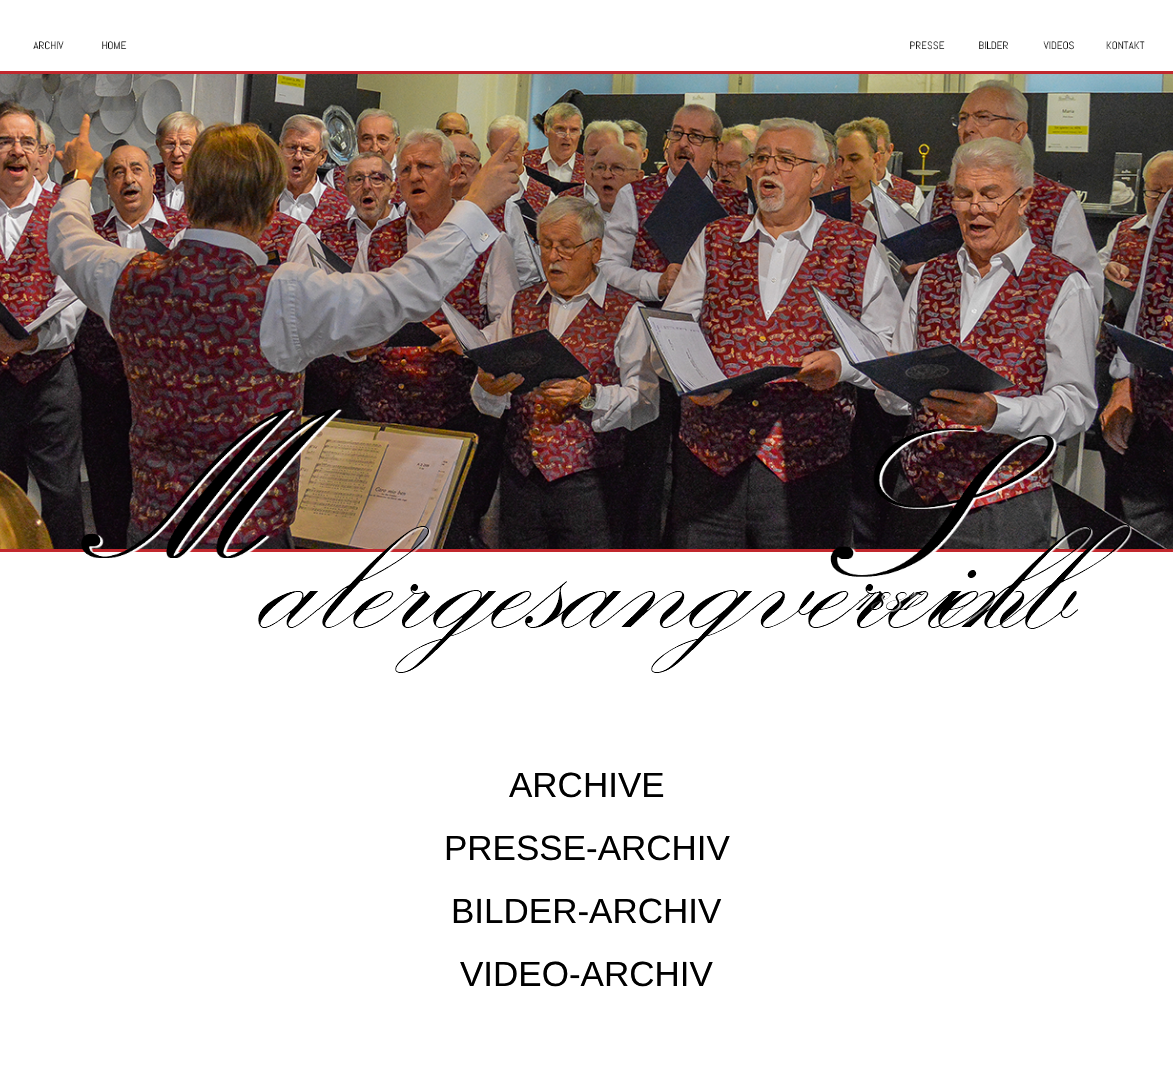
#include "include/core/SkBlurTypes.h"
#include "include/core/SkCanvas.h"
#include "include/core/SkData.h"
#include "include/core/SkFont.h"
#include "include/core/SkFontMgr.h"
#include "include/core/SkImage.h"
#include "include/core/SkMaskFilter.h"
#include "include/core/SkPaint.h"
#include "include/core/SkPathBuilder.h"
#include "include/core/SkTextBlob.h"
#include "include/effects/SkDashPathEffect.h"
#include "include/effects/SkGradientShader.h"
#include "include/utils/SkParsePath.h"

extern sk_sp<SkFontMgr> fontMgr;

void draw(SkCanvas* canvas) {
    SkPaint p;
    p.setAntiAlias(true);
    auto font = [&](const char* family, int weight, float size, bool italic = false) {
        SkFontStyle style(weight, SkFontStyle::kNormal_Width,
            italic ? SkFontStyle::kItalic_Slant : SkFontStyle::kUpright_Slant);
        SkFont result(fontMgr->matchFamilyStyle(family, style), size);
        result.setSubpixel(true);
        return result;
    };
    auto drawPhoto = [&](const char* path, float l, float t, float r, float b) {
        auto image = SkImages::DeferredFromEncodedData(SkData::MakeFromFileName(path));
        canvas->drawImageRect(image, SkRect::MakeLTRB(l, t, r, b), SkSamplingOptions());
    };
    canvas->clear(0xFFFFFFFF);
    drawPhoto("media/1.png", 33, 41, 64, 50);
    drawPhoto("media/2.png", 102, 41, 127, 50);
    drawPhoto("media/3.png", 910, 41, 945, 50);
    drawPhoto("media/4.png", 979, 41, 1008, 49);
    drawPhoto("media/5.png", 1043, 41, 1074, 50);
    drawPhoto("media/6.png", 1106, 41, 1145, 50);
    p.setColor(0xFFC1272D);
    canvas->drawRect(SkRect::MakeLTRB(0, 71, 1173, 74), p);
    drawPhoto("media/7.png", 0, 74, 1173, 549);
    canvas->drawRect(SkRect::MakeLTRB(0, 549, 1173, 552), p);
    drawPhoto("media/8.png", 81, 408, 342, 558);
    drawPhoto("media/10.png", 258, 526, 1027, 673);
    drawPhoto("media/9.png", 830, 428, 1057, 577);
    drawPhoto("media/11.png", 938, 524, 1132, 629);
    drawPhoto("media/12.png", 856, 592, 928, 612);
    auto font1 = font("Liberation Sans", 400, 35);
    p.setColor(0xFF000000);
    {
        const struct { const char* s; float x, y; } items[] = {
            {"ARCHIVE", 509, 797},
            {"PRESSE-ARCHIV", 444, 860},
            {"BILDER-ARCHIV", 451, 923},
            {"VIDEO-ARCHIV", 460, 986},
        };
        for (auto [s, x, y] : items) {
            canvas->drawString(s, x, y, font1, p);
        }
    }
}
